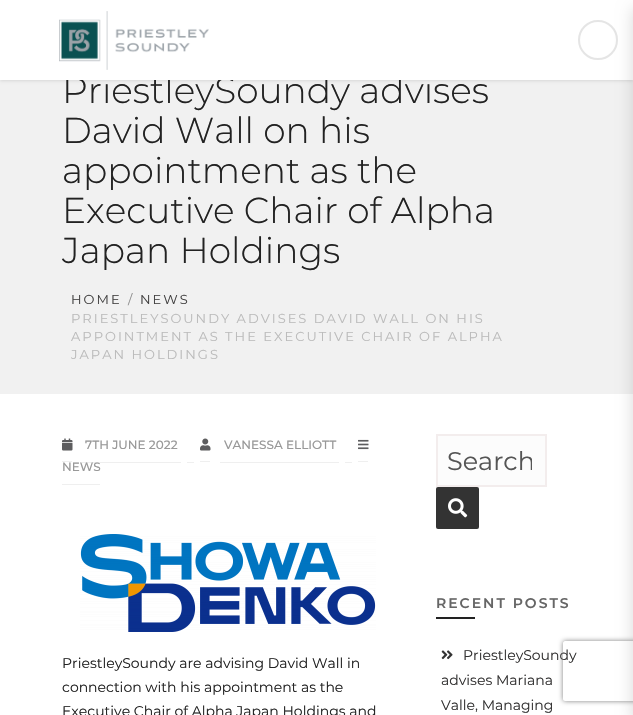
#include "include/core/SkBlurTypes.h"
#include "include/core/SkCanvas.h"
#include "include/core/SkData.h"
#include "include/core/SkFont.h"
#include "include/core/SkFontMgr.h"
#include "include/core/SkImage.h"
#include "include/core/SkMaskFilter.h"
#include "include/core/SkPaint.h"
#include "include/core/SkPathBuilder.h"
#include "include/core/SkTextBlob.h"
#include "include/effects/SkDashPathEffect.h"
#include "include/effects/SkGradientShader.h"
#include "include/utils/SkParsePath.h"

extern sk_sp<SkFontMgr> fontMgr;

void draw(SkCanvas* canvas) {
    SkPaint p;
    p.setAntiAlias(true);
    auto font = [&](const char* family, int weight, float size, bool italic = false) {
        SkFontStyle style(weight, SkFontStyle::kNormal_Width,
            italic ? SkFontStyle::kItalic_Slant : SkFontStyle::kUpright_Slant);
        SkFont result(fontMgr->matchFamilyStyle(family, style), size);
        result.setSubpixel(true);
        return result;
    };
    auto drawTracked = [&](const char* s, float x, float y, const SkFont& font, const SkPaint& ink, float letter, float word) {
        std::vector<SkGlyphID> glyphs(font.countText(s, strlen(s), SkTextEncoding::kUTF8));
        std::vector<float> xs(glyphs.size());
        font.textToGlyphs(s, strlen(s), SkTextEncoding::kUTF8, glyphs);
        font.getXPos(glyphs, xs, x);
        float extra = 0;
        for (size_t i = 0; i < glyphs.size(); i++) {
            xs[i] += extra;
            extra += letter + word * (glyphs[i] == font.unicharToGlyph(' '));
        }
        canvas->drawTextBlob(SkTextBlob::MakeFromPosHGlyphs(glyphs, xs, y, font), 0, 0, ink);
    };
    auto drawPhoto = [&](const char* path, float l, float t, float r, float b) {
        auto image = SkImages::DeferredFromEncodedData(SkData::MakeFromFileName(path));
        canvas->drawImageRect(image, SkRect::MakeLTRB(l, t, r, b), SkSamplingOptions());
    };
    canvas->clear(0xFFFFFFFF);
    p.setColor(0xFFF1F1F1);
    canvas->drawRect(SkRect::MakeLTRB(0, 80, 633, 394), p);
    p.setColor(0x1C000000);
    p.setMaskFilter(SkMaskFilter::MakeBlur(kNormal_SkBlurStyle, 1.5f));
    canvas->drawRect(SkRect::MakeLTRB(0, 1, 633, 81), p);
    p.setMaskFilter(nullptr);
    auto font1 = font("Montserrat", 300, 36);
    p.setColor(0xFF222222);
    canvas->drawString("PriestleySoundy advises", 62, 103, font1, p);
    p.setColor(0xFFFFFFFF);
    canvas->drawRect(SkRect::MakeLTRB(0, 0, 633, 80), p);
    drawPhoto("media/1.png", 59, 11, 209, 70);
    p.setStyle(SkPaint::kStroke_Style);
    p.setStrokeWidth(2);
    p.setColor(0xFFE5E5E5);
    canvas->drawCircle(598, 40, 19, p);
    p.setStyle(SkPaint::kFill_Style);
    p.setColor(0xFF222222);
    {
        const struct { const char* s; float x, y; } items[] = {
            {"David Wall on his", 62, 143},
            {"appointment as the", 62, 183},
            {"Executive Chair of Alpha", 62, 223},
            {"Japan Holdings", 62, 263},
        };
        for (auto [s, x, y] : items) {
            canvas->drawString(s, x, y, font1, p);
        }
    }
    auto font2 = font("Montserrat", 400, 13);
    p.setColor(0xFF424141);
    drawTracked("HOME", 71, 304, font2, p, 2, 0);
    p.setColor(0xFF8F8F8F);
    drawTracked("/", 128, 304, font2, p, 2, 0);
    p.setColor(0xFF424141);
    drawTracked("NEWS", 140, 304, font2, p, 2, 0);
    p.setColor(0xFFBBBBBB);
    {
        const struct { const char* s; float x, y; } items[] = {
            {"PRIESTLEYSOUNDY ADVISES DAVID WALL ON HIS", 71, 323},
            {"APPOINTMENT AS THE EXECUTIVE CHAIR OF ALPHA", 71, 341},
            {"JAPAN HOLDINGS", 71, 359},
        };
        for (auto [s, x, y] : items) {
            drawTracked(s, x, y, font2, p, 2, 0);
        }
    }
    {
        const struct { float l, t, r, b; SkColor color; } items[] = {
            {62, 461, 72, 462, 0xFFEFEFEF},
            {82, 462, 181, 463, 0xFFEFEFEF},
            {187, 462, 194, 463, 0xFFEFEFEF},
        };
        for (auto [l, t, r, b, color] : items) {
            p.setColor(color);
            canvas->drawRect(SkRect::MakeLTRB(l, t, r, b), p);
        }
    }
    drawPhoto("media/2.png", 62, 438, 73, 451);
    auto font3 = font("Montserrat", 500, 12);
    p.setColor(0xFF999999);
    canvas->drawString("7TH JUNE 2022", 85, 449, font3, p);
    {
        const struct { float l, t, r, b; SkColor color; } items[] = {
            {200, 461, 210, 462, 0xFFEFEFEF},
            {220, 462, 339, 463, 0xFFEFEFEF},
            {345, 462, 352, 463, 0xFFEFEFEF},
        };
        for (auto [l, t, r, b, color] : items) {
            p.setColor(color);
            canvas->drawRect(SkRect::MakeLTRB(l, t, r, b), p);
        }
    }
    drawPhoto("media/3.png", 200, 438, 211, 451);
    p.setColor(0xFF999999);
    canvas->drawString("VANESSA ELLIOTT", 224, 449, font3, p);
    p.setColor(0xFFEFEFEF);
    canvas->drawRect(SkRect::MakeLTRB(358, 461, 368, 462), p);
    canvas->drawRect(SkRect::MakeLTRB(62, 484, 100, 485), p);
    drawPhoto("media/4.png", 358, 439, 369, 450);
    p.setColor(0xFF999999);
    canvas->drawString("NEWS", 62, 471, font3, p);
    drawPhoto("media/5.png", 80, 534, 376, 632);
    auto font4 = font("Montserrat", 400, 14);
    p.setColor(0xFF222222);
    {
        const struct { const char* s; float x, y; } items[] = {
            {"PriestleySoundy are advising David Wall in", 62, 668},
            {"connection with his appointment as the", 62, 692},
            {"Executive Chair of Alpha Japan Holdings and", 62, 716},
        };
        for (auto [s, x, y] : items) {
            canvas->drawString(s, x, y, font4, p);
        }
    }
    p.setColor(0xFFFCFCFC);
    canvas->drawRect(SkRect::MakeLTRB(437, 435, 546, 486), p);
    p.setStyle(SkPaint::kStroke_Style);
    p.setColor(0xFFF3EDED);
    canvas->drawRect(SkRect::MakeLTRB(437, 435, 546, 486), p);
    canvas->save();
    canvas->clipRect(SkRect::MakeLTRB(447, 445, 532, 476));
    auto font5 = font("Montserrat", 400, 25.5f);
    p.setStyle(SkPaint::kFill_Style);
    p.setColor(0xFF555555);
    canvas->drawString("Search", 447, 470, font5, p);
    canvas->restore();
    p.setColor(0xFF333333);
    canvas->drawRoundRect(SkRect::MakeLTRB(436, 487, 479, 529), 2, 2, p);
    drawPhoto("media/6.png", 448, 498, 468, 518);
    auto font6 = font("Montserrat", 600, 14);
    p.setColor(0xFF666666);
    drawTracked("RECENT POSTS", 436, 608, font6, p, 2, 0);
    p.setColor(0xFF222222);
    canvas->drawRect(SkRect::MakeLTRB(436, 617, 475, 619), p);
    drawPhoto("media/7.png", 441, 650, 453, 660);
    p.setColor(0xFF333232);
    {
        const struct { const char* s; float x, y; } items[] = {
            {"PriestleySoundy", 463, 660},
            {"advises Mariana", 441, 685},
            {"Valle, Managing", 441, 710},
        };
        for (auto [s, x, y] : items) {
            canvas->drawString(s, x, y, font4, p);
        }
    }
    p.setColor(0x26000000);
    p.setMaskFilter(SkMaskFilter::MakeBlur(kNormal_SkBlurStyle, 8));
    canvas->drawRect(SkRect::MakeLTRB(633, 8, 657, 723), p);
    p.setMaskFilter(nullptr);
    canvas->save();
    canvas->clipPath(SkPathBuilder(SkPathFillType::kEvenOdd).moveTo(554, 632).lineTo(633, 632).lineTo(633, 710).lineTo(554, 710).close().moveTo(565, 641).lineTo(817, 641).cubicTo(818, 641, 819, 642, 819, 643).lineTo(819, 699).cubicTo(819, 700, 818, 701, 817, 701).lineTo(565, 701).cubicTo(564, 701, 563, 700, 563, 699).lineTo(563, 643).cubicTo(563, 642, 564, 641, 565, 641).close().detach(), true);
    p.setColor(0xFF808080);
    p.setMaskFilter(SkMaskFilter::MakeBlur(kNormal_SkBlurStyle, 2.5f));
    canvas->drawRoundRect(SkRect::MakeLTRB(563, 641, 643, 701), 2, 2, p);
    p.setMaskFilter(nullptr);
    canvas->restore();
}
